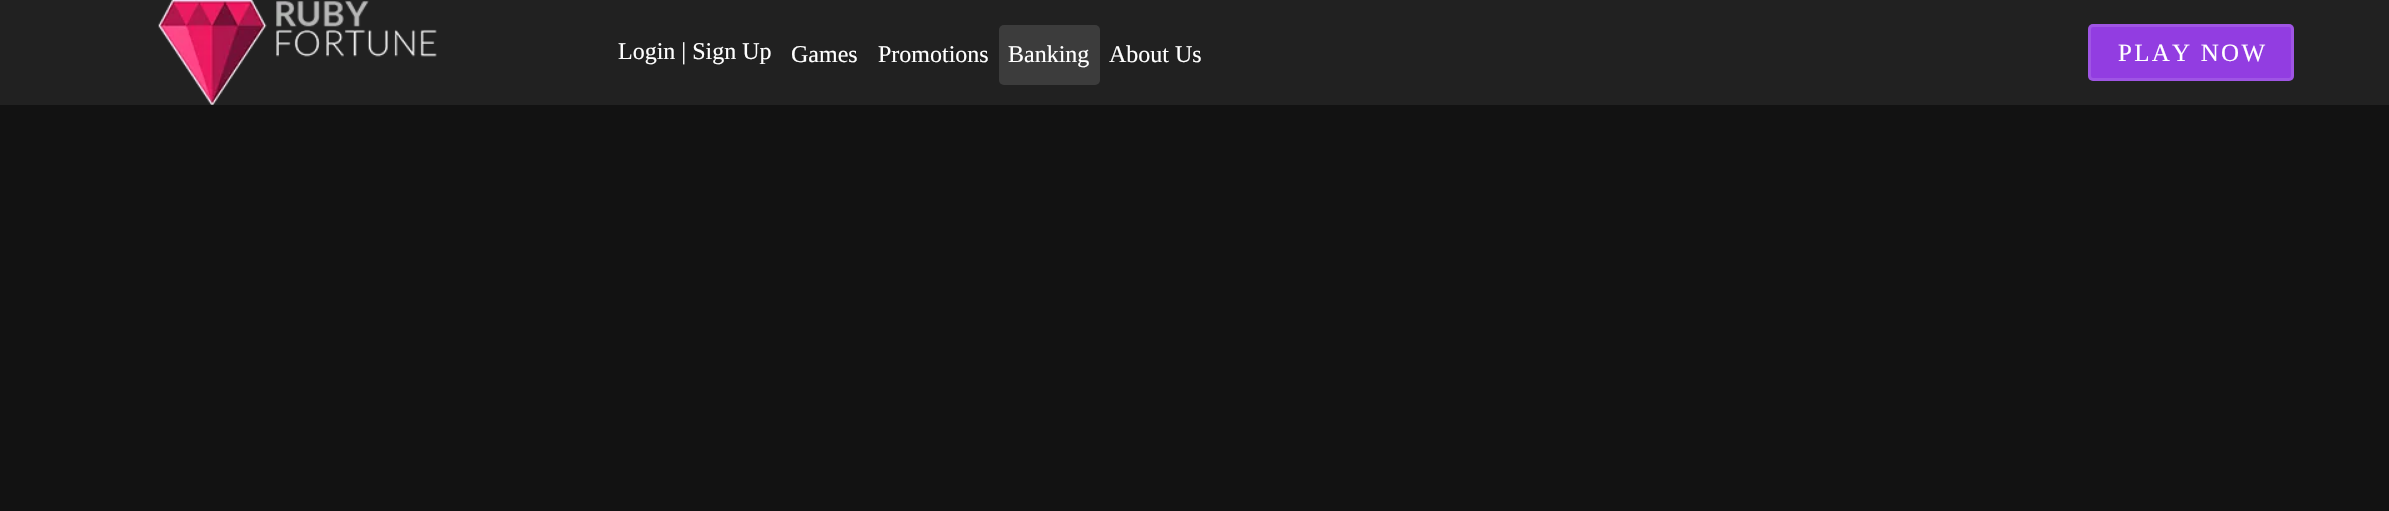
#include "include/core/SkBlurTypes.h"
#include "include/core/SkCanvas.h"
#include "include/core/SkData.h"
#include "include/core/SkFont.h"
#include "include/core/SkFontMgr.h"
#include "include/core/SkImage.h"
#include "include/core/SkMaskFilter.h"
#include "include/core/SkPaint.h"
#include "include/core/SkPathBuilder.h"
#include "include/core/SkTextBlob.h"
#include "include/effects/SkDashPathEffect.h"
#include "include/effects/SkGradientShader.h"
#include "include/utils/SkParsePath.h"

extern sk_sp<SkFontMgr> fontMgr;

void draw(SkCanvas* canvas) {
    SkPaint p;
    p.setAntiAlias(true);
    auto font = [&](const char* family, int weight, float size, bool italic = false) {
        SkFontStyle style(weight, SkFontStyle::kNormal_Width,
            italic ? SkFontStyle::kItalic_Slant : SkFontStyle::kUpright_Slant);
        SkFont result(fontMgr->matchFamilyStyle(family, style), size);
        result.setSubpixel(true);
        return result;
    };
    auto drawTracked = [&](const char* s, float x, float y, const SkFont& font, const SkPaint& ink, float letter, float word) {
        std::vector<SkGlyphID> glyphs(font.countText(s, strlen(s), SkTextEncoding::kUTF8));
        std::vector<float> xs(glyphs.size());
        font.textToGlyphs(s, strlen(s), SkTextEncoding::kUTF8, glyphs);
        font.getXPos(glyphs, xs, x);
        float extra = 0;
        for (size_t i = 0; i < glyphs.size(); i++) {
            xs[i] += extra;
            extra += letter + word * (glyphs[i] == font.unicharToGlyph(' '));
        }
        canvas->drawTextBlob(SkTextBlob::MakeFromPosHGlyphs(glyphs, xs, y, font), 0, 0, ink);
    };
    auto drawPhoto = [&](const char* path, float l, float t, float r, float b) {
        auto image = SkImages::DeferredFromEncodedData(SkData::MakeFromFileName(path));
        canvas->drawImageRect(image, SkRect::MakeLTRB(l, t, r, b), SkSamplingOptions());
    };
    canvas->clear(0xFF121212);
    p.setColor(0xFF212121);
    canvas->drawRect(SkRect::MakeLTRB(0, 0, 2389, 105), p);
    drawPhoto("media/1.png", 158, 0, 437, 105);
    auto font1 = font("Liberation Serif", 400, 24);
    p.setColor(0xFFFFFFFF);
    {
        const struct { const char* s; float x, y; } items[] = {
            {"Login | Sign Up", 618, 59},
            {"Games", 791, 62},
            {"Promotions", 878, 62},
        };
        for (auto [s, x, y] : items) {
            canvas->drawString(s, x, y, font1, p);
        }
    }
    p.setColor(0x1FFFFFFF);
    canvas->drawRoundRect(SkRect::MakeLTRB(999, 25, 1100, 85), 5, 5, p);
    p.setColor(0xFFFFFFFF);
    canvas->drawString("Banking", 1008, 62, font1, p);
    canvas->drawString("About Us", 1109, 62, font1, p);
    p.setColor(0xFF923DE1);
    canvas->drawRoundRect(SkRect::MakeLTRB(2088, 24, 2294, 81), 5, 5, p);
    p.setStyle(SkPaint::kStroke_Style);
    p.setStrokeWidth(3);
    p.setColor(0x1FFFFFFF);
    canvas->drawRoundRect(SkRect::MakeLTRB(2089.5f, 25.5f, 2292.5f, 79.5f), 3.5f, 3.5f, p);
    auto font2 = font("Liberation Serif", 400, 25);
    p.setStyle(SkPaint::kFill_Style);
    p.setColor(0xFFFFFFFF);
    drawTracked("PLAY NOW", 2118, 61, font2, p, 2.25f, 0);
}
